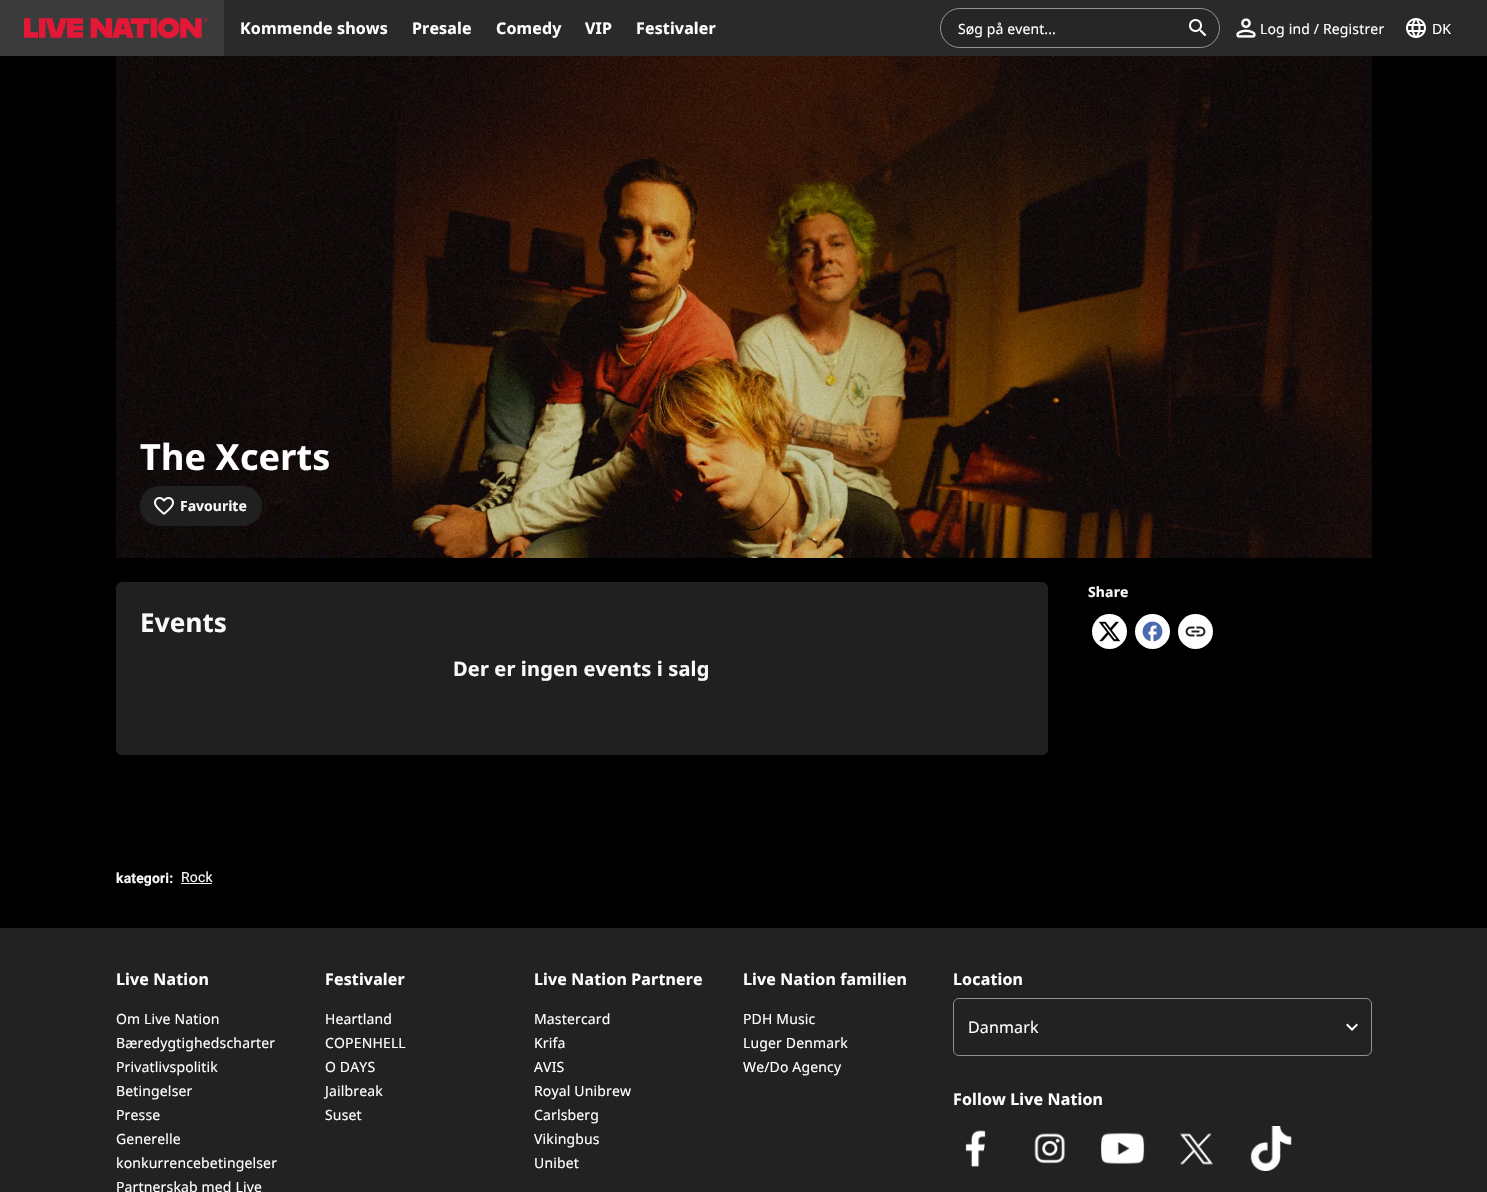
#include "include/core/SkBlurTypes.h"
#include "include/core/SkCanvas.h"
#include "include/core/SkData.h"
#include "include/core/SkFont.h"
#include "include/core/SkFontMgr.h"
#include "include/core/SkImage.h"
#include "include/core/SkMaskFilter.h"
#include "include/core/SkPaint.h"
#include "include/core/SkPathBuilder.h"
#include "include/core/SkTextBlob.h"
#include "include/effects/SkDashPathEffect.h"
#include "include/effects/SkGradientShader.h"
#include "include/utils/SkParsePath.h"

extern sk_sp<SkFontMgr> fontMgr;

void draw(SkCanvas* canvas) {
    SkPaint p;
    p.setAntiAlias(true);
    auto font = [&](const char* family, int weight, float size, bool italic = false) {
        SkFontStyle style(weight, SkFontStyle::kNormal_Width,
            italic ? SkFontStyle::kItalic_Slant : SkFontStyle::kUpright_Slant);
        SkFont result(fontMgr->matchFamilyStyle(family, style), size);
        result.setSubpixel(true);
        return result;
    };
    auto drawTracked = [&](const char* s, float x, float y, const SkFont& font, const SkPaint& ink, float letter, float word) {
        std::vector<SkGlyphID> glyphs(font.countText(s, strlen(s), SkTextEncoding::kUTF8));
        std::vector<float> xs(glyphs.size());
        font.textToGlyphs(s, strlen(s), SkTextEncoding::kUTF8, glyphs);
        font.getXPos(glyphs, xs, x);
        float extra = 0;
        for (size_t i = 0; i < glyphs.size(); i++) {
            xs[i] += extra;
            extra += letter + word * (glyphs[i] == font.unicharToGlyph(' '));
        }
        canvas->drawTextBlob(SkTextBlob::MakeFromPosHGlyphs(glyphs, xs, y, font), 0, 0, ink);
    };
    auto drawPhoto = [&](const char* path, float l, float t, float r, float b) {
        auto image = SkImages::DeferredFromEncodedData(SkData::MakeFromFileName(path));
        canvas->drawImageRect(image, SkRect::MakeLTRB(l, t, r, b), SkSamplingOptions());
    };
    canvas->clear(0xFF000000);
    p.setColor(0xFF2A2A2A);
    canvas->drawRect(SkRect::MakeLTRB(224, 0, 1487, 56), p);
    p.setColor(0xFF3B3B3B);
    canvas->drawRect(SkRect::MakeLTRB(0, 0, 224, 56), p);
    drawPhoto("media/1.png", 24, 17, 208, 39);
    auto font1 = font("Noto Sans", 700, 16);
    p.setColor(0xFFFFFFFF);
    {
        const struct { const char* s; float x, y; } items[] = {
            {"Kommende shows", 240, 34},
            {"Presale", 412, 34},
            {"Comedy", 496, 34},
            {"VIP", 585, 34},
            {"Festivaler", 636, 34},
        };
        for (auto [s, x, y] : items) {
            drawTracked(s, x, y, font1, p, 0.15f, 0);
        }
    }
    p.setColor(0xFF262626);
    canvas->drawRoundRect(SkRect::MakeLTRB(940.5f, 8.5f, 1219.5f, 47.5f), 19.5f, 19.5f, p);
    p.setStyle(SkPaint::kStroke_Style);
    p.setStrokeWidth(1);
    p.setColor(0xFF939393);
    canvas->drawRoundRect(SkRect::MakeLTRB(940.5f, 8.5f, 1219.5f, 47.5f), 19.5f, 19.5f, p);
    auto font2 = font("Noto Sans", 400, 14);
    p.setStyle(SkPaint::kFill_Style);
    p.setColor(0xFFFFFFFF);
    drawTracked("Søg på event...", 958, 34, font2, p, 0.1f, 0);
    drawPhoto("media/2.png", 1189, 19, 1206, 36);
    drawPhoto("media/3.png", 1236, 18, 1256, 38);
    drawTracked("Log ind / Registrer", 1260, 34, font2, p, 0.15f, 0);
    drawPhoto("media/4.png", 1406, 18, 1426, 38);
    drawTracked("DK", 1432, 34, font2, p, 0.1f, 0);
    drawPhoto("media/5.png", 116, 56, 1372, 558);
    auto font3 = font("Noto Sans", 700, 36);
    drawTracked("The Xcerts", 140, 470, font3, p, 0.15f, 0);
    p.setColor(0xFF202020);
    canvas->drawRoundRect(SkRect::MakeLTRB(140, 486, 262, 526), 20, 20, p);
    drawPhoto("media/6.png", 154, 497, 174, 515);
    auto font4 = font("Noto Sans", 700, 14);
    p.setColor(0xFFF9F9F9);
    canvas->drawString("Favourite", 180, 511, font4, p);
    drawTracked("Share", 1088, 597, font4, p, 0.15f, 0);
    p.setColor(0xFFFFFFFF);
    canvas->drawCircle(1109.5f, 631.5f, 17.5f, p);
    drawPhoto("media/7.png", 1099, 621, 1121, 642);
    canvas->drawCircle(1152.5f, 631.5f, 17.5f, p);
    drawPhoto("media/8.png", 1142, 621, 1163, 642);
    canvas->drawCircle(1195.5f, 631.5f, 17.5f, p);
    drawPhoto("media/9.png", 1185, 626, 1206, 637);
    p.setColor(0xFF202020);
    canvas->drawRoundRect(SkRect::MakeLTRB(116, 582, 1048, 755), 6, 6, p);
    auto font5 = font("Noto Sans", 700, 26);
    p.setColor(0xFFF9F9F9);
    drawTracked("Events", 140, 632, font5, p, 0.15f, 0);
    p.setColor(0xFF202020);
    canvas->drawRoundRect(SkRect::MakeLTRB(116, 654, 1048, 755), 6, 6, p);
    auto font6 = font("Noto Sans", 700, 20);
    p.setColor(0xFFF9F9F9);
    drawTracked("Der er ingen events i salg", 453, 676, font6, p, 0.15f, 0);
    auto font7 = font("Roboto", 700, 14);
    drawTracked("kategori:", 116, 883, font7, p, 0.15f, 0);
    auto font8 = font("Roboto", 400, 14);
    drawTracked("Rock", 181, 882, font8, p, 0.15f, 0);
    canvas->drawRect(SkRect::MakeLTRB(181, 883, 212, 884), p);
    p.setColor(0xFF222222);
    canvas->drawRect(SkRect::MakeLTRB(0, 928, 1487, 1192), p);
    p.setColor(0xFFFFFFFF);
    drawTracked("Live Nation", 116, 985, font1, p, 0.15f, 0);
    {
        const struct { const char* s; float x, y; } items[] = {
            {"Om Live Nation", 116, 1024},
            {"Bæredygtighedscharter", 116, 1048},
            {"Privatlivspolitik", 116, 1072},
            {"Betingelser", 116, 1096},
            {"Presse", 116, 1120},
            {"Generelle", 116, 1144},
            {"konkurrencebetingelser", 116, 1168},
            {"Partnerskab med Live", 116, 1192},
        };
        for (auto [s, x, y] : items) {
            drawTracked(s, x, y, font2, p, 0.15f, 0);
        }
    }
    drawTracked("Festivaler", 325, 985, font1, p, 0.15f, 0);
    {
        const struct { const char* s; float x, y; } items[] = {
            {"Heartland", 325, 1024},
            {"COPENHELL", 325, 1048},
            {"O DAYS", 325, 1072},
            {"Jailbreak", 325, 1096},
            {"Suset", 325, 1120},
        };
        for (auto [s, x, y] : items) {
            drawTracked(s, x, y, font2, p, 0.15f, 0);
        }
    }
    drawTracked("Live Nation Partnere", 534, 985, font1, p, 0.15f, 0);
    {
        const struct { const char* s; float x, y; } items[] = {
            {"Mastercard", 534, 1024},
            {"Krifa", 534, 1048},
            {"AVIS", 534, 1072},
            {"Royal Unibrew", 534, 1096},
            {"Carlsberg", 534, 1120},
            {"Vikingbus", 534, 1144},
            {"Unibet", 534, 1168},
        };
        for (auto [s, x, y] : items) {
            drawTracked(s, x, y, font2, p, 0.15f, 0);
        }
    }
    drawTracked("Live Nation familien", 743, 985, font1, p, 0.15f, 0);
    {
        const struct { const char* s; float x, y; } items[] = {
            {"PDH Music", 743, 1024},
            {"Luger Denmark", 743, 1048},
            {"We/Do Agency", 743, 1072},
        };
        for (auto [s, x, y] : items) {
            drawTracked(s, x, y, font2, p, 0.15f, 0);
        }
    }
    drawTracked("Location", 953, 985, font1, p, 0.15f, 0);
    p.setStyle(SkPaint::kStroke_Style);
    p.setColor(0xFF919191);
    canvas->drawRoundRect(SkRect::MakeLTRB(953.5f, 998.5f, 1371.5f, 1055.5f), 5.5f, 5.5f, p);
    p.setStyle(SkPaint::kFill_Style);
    p.setColor(0xFF222222);
    canvas->drawRoundRect(SkRect::MakeLTRB(954, 999, 1371, 1055), 6, 6, p);
    auto font9 = font("Noto Sans", 400, 16);
    p.setColor(0xFFFFFFFF);
    drawTracked("Danmark", 968, 1033, font9, p, 0.15f, 0);
    drawPhoto("media/10.png", 1346, 1023, 1358, 1031);
    drawTracked("Follow Live Nation", 953, 1105, font1, p, 0.15f, 0);
    drawPhoto("media/11.png", 965, 1130, 986, 1167);
    drawPhoto("media/12.png", 1034, 1133, 1065, 1164);
    drawPhoto("media/13.png", 1100, 1132, 1145, 1164);
    drawPhoto("media/14.png", 1180, 1133, 1214, 1165);
    drawPhoto("media/15.png", 1250, 1126, 1292, 1171);
}
